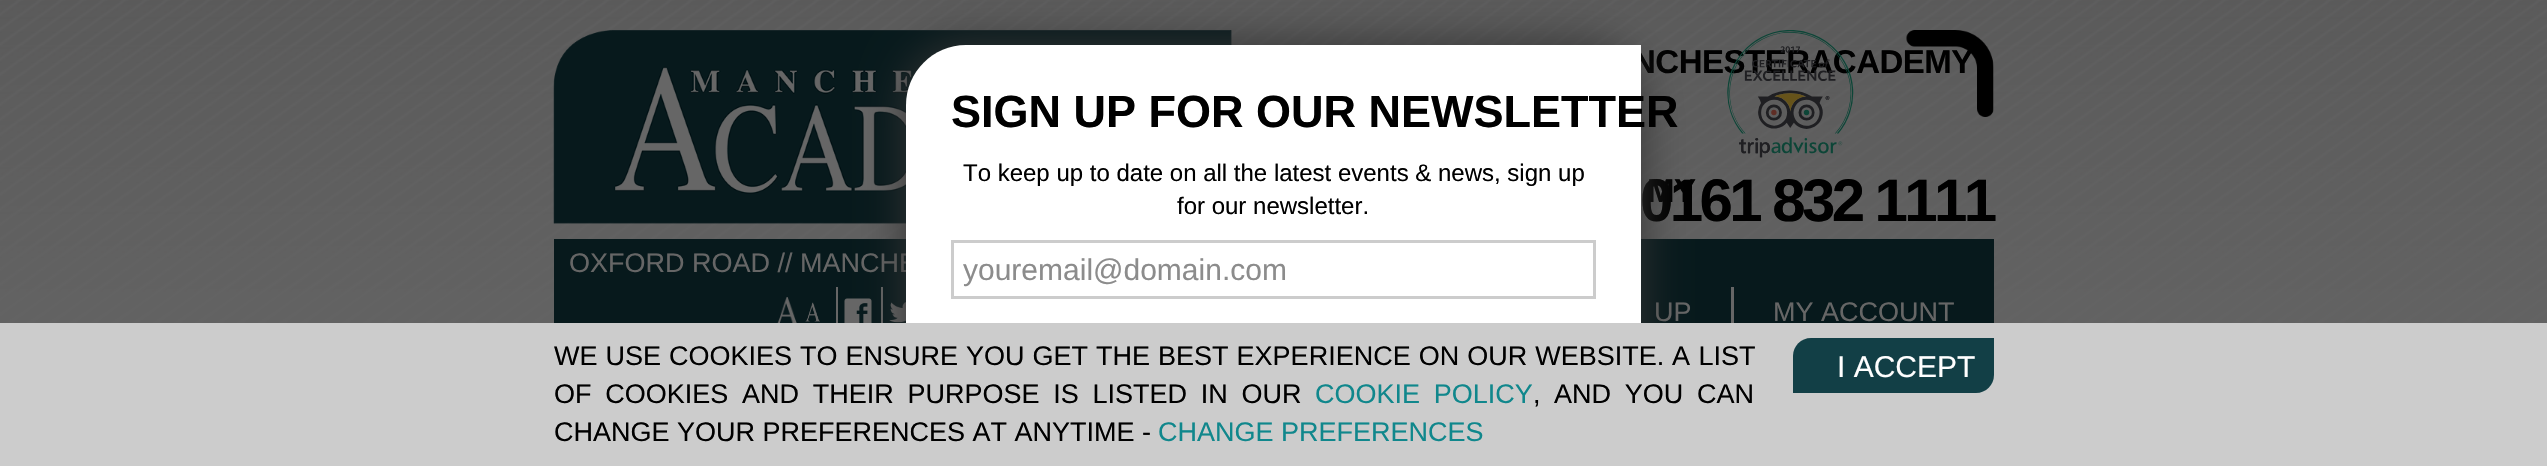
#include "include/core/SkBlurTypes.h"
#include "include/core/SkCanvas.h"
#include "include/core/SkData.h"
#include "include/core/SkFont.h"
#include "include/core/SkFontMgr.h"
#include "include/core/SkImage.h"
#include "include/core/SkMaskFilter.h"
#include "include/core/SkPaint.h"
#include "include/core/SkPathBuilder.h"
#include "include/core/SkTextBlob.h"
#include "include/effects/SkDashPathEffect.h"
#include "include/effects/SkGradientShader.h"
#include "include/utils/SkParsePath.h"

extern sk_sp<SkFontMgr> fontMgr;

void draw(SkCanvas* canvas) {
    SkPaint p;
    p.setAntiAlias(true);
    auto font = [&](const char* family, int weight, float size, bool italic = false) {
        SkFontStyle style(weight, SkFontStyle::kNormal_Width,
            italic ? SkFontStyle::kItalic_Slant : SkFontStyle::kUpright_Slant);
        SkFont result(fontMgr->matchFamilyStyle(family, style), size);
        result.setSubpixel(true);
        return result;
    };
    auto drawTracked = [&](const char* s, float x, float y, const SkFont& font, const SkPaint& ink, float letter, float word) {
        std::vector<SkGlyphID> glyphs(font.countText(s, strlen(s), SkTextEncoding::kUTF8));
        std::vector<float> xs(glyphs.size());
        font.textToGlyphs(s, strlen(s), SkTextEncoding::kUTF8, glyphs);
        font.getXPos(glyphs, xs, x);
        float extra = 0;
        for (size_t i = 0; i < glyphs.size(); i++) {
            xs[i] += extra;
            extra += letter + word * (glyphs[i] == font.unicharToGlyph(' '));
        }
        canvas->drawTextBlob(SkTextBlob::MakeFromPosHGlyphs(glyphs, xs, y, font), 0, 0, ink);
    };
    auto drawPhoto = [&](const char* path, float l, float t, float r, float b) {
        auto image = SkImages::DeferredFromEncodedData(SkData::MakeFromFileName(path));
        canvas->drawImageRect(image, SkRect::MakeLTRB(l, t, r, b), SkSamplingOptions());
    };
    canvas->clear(0xFFFFFFFF);
    drawPhoto("media/1.png", 0, 0, 2547, 323);
    drawPhoto("media/2.png", 553, 30, 1232, 224);
    auto font1 = font("Liberation Sans", 700, 33);
    p.setColor(0xFF000000);
    drawTracked("NCHESTERACADEMY", 1632, 73, font1, p, -0.5f, 0);
    drawPhoto("media/3.png", 1727, 30, 1854, 158);
    drawPhoto("media/4.png", 1906, 30, 1994, 117);
    drawTracked("MY", 1647, 202, font1, p, -0.5f, 0);
    auto font2 = font("Liberation Sans", 700, 60);
    drawTracked("0161 832 1111", 1640, 221, font2, p, -3.6f, 0);
    p.setColor(0xFF07191C);
    canvas->drawRect(SkRect::MakeLTRB(554, 239, 1994, 323), p);
    auto font3 = font("Liberation Sans", 400, 27);
    p.setColor(0xFF666666);
    canvas->drawString("OXFORD ROAD // MANCHE", 569, 272, font3, p);
    drawPhoto("media/5.png", 777, 297, 797, 323);
    canvas->drawRect(SkRect::MakeLTRB(836, 287, 838, 323), p);
    drawPhoto("media/6.png", 805, 302, 820, 322);
    canvas->drawRect(SkRect::MakeLTRB(881, 287, 883, 323), p);
    drawPhoto("media/7.png", 844, 298, 872, 323);
    drawPhoto("media/8.png", 889, 302, 906, 323);
    canvas->drawString("UP", 1654, 321, font3, p);
    canvas->drawRect(SkRect::MakeLTRB(1731, 287, 1734, 323), p);
    canvas->drawString("MY ACCOUNT", 1773, 321, font3, p);
    p.setColor(0xFF333333);
    p.setMaskFilter(SkMaskFilter::MakeBlur(kNormal_SkBlurStyle, 22.5f));
    canvas->drawRoundRect(SkRect::MakeLTRB(906, 45, 1641, 422), 60, 60, p);
    p.setMaskFilter(nullptr);
    p.setColor(0xFFFFFFFF);
    canvas->drawPath(SkPathBuilder().moveTo(966, 45).lineTo(1641, 45).lineTo(1641, 362).cubicTo(1641, 395, 1614, 422, 1581, 422).lineTo(906, 422).lineTo(906, 105).cubicTo(906, 72, 933, 45, 966, 45).close().detach(), p);
    auto font4 = font("Liberation Sans", 700, 45);
    p.setColor(0xFF000000);
    canvas->drawString("SIGN UP FOR OUR NEWSLETTER", 951, 127, font4, p);
    auto font5 = font("Liberation Sans", 400, 24);
    canvas->drawString("To keep up to date on all the latest events & news, sign up", 963, 181, font5, p);
    canvas->drawString("for our newsletter.", 1177, 214, font5, p);
    p.setStyle(SkPaint::kStroke_Style);
    p.setStrokeWidth(3);
    p.setColor(0xFFCCCCCC);
    canvas->drawRect(SkRect::MakeLTRB(952.5f, 241.5f, 1594.5f, 297.5f), p);
    auto font6 = font("Liberation Sans", 400, 30);
    p.setStyle(SkPaint::kFill_Style);
    p.setColor(0xFF8C8C8C);
    canvas->drawString("youremail@domain.com", 963, 280, font6, p);
    p.setColor(0xFFCCCCCC);
    canvas->drawRect(SkRect::MakeLTRB(0, 323, 2547, 466), p);
    p.setColor(0xFF000000);
    drawTracked("WE USE COOKIES TO ENSURE YOU GET THE BEST EXPERIENCE ON OUR WEBSITE.", 554, 365, font3, p, 0, 0.5f);
    drawTracked("A LIST", 1672, 365, font3, p, 0, 1);
    drawTracked("OF COOKIES AND THEIR PURPOSE IS LISTED IN OUR", 554, 403, font3, p, 0, 6.25f);
    p.setColor(0xFF10878C);
    drawTracked("COOKIE POLICY", 1315, 403, font3, p, 0, 6.25f);
    p.setColor(0xFF000000);
    canvas->drawString(",", 1533, 403, font3, p);
    drawTracked("AND YOU CAN", 1554, 403, font3, p, 0, 6.25f);
    canvas->drawString("CHANGE YOUR PREFERENCES AT ANYTIME -", 554, 441, font3, p);
    p.setColor(0xFF10878C);
    canvas->drawString("CHANGE PREFERENCES", 1158, 441, font3, p);
    p.setColor(0xFF123F46);
    canvas->drawPath(SkPathBuilder().moveTo(1811, 338).lineTo(1994, 338).lineTo(1994, 375).cubicTo(1994, 385, 1986, 393, 1976, 393).lineTo(1793, 393).lineTo(1793, 356).cubicTo(1793, 346, 1801, 338, 1811, 338).close().detach(), p);
    p.setColor(0xFFFFFFFF);
    canvas->drawString("I ACCEPT", 1837, 377, font6, p);
}
